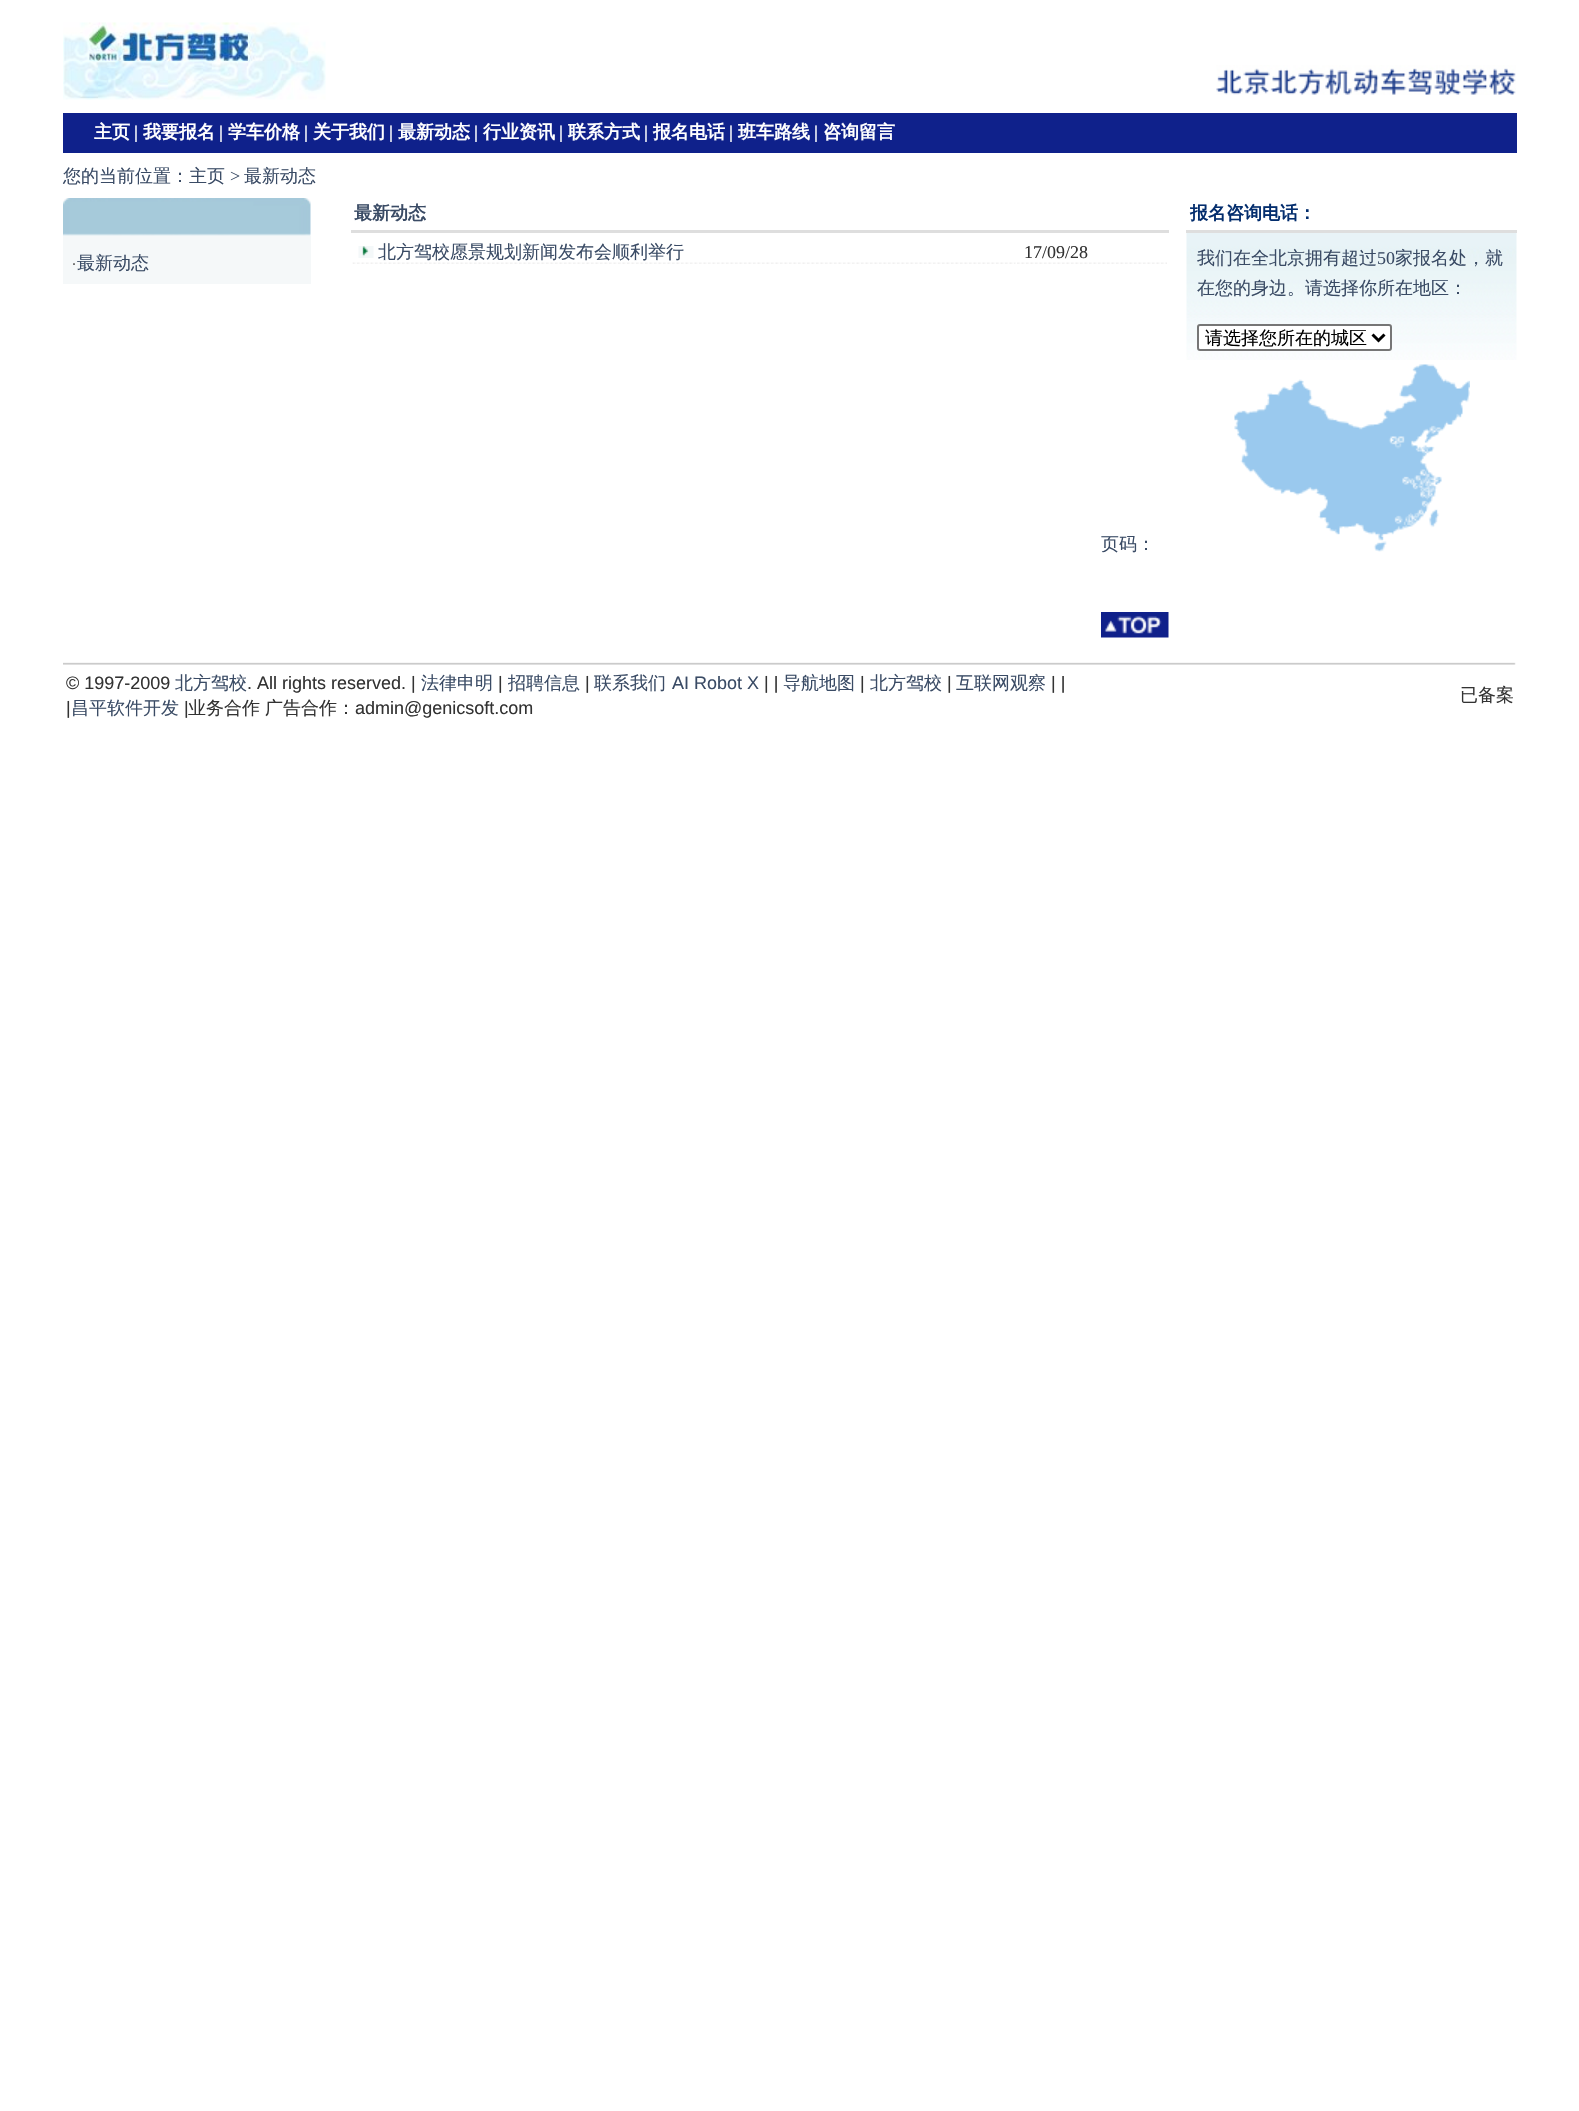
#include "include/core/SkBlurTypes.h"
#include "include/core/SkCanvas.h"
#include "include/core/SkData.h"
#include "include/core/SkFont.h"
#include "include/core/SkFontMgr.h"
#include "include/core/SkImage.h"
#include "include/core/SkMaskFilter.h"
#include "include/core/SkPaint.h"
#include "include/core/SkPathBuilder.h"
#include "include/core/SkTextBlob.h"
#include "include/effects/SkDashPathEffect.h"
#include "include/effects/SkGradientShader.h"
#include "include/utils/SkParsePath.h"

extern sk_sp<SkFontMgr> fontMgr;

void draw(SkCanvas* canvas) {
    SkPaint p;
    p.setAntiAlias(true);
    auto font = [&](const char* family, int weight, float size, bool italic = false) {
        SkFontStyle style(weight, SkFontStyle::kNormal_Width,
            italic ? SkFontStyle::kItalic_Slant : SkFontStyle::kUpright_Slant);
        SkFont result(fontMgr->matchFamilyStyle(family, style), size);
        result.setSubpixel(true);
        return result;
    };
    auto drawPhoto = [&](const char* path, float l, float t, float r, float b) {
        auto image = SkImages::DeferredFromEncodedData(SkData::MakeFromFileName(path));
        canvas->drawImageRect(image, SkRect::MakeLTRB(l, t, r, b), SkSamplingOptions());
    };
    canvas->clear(0xFFFFFFFF);
    drawPhoto("media/1.png", 63, 22, 326, 100);
    drawPhoto("media/2.png", 1216, 65, 1516, 95);
    p.setColor(0xFF0F218B);
    canvas->drawRect(SkRect::MakeLTRB(63, 113, 1517, 153), p);
    auto font1 = font("WenQuanYi Zen Hei", 700, 18);
    p.setColor(0xFFFFFFFF);
    canvas->drawString("主页", 94, 138, font1, p);
    auto font2 = font("Liberation Serif", 700, 18);
    canvas->drawString("|", 134, 138, font2, p);
    canvas->drawString("我要报名", 143, 138, font1, p);
    canvas->drawString("|", 219, 138, font2, p);
    canvas->drawString("学车价格", 228, 138, font1, p);
    canvas->drawString("|", 304, 138, font2, p);
    canvas->drawString("关于我们", 313, 138, font1, p);
    canvas->drawString("|", 389, 138, font2, p);
    canvas->drawString("最新动态", 398, 138, font1, p);
    canvas->drawString("|", 474, 138, font2, p);
    canvas->drawString("行业资讯", 483, 138, font1, p);
    canvas->drawString("|", 559, 138, font2, p);
    canvas->drawString("联系方式", 568, 138, font1, p);
    canvas->drawString("|", 644, 138, font2, p);
    canvas->drawString("报名电话", 653, 138, font1, p);
    canvas->drawString("|", 729, 138, font2, p);
    canvas->drawString("班车路线", 738, 138, font1, p);
    canvas->drawString("|", 814, 138, font2, p);
    canvas->drawString("咨询留言", 823, 138, font1, p);
    auto font3 = font("WenQuanYi Zen Hei", 500, 18);
    p.setColor(0xFF3A4B65);
    canvas->drawString("您的当前位置：主页", 63, 182, font3, p);
    auto font4 = font("Liberation Serif", 400, 18);
    canvas->drawString(">", 230, 182, font4, p);
    canvas->drawString("最新动态", 244, 182, font3, p);
    drawPhoto("media/3.png", 63, 198, 311, 236);
    p.setColor(0xFFF5F8F9);
    canvas->drawRect(SkRect::MakeLTRB(63, 236, 311, 284), p);
    auto font5 = font("Liberation Sans", 400, 18);
    p.setColor(0xFF666666);
    canvas->drawString("·", 71, 269, font5, p);
    p.setColor(0xFF3A4B65);
    canvas->drawString("最新动态", 77, 269, font3, p);
    canvas->drawString("最新动态", 354, 219, font1, p);
    p.setColor(0xFFDEDEDE);
    canvas->drawRect(SkRect::MakeLTRB(351, 230, 1169, 233), p);
    drawPhoto("media/4.png", 352, 262, 1016, 264);
    drawPhoto("media/5.png", 358, 246, 374, 258);
    p.setColor(0xFF3A4B65);
    canvas->drawString("北方驾校愿景规划新闻发布会顺利举行", 378, 258, font3, p);
    drawPhoto("media/6.png", 1017, 262, 1167, 264);
    p.setColor(0xFF333333);
    canvas->drawString("17/09/28", 1024, 258, font4, p);
    p.setColor(0xFF3A4B65);
    canvas->drawString("页码：", 1101, 550, font3, p);
    drawPhoto("media/7.png", 1101, 612, 1169, 638);
    p.setColor(0xFF032D6D);
    canvas->drawString("报名咨询电话：", 1190, 219, font1, p);
    p.setColor(0xFFDEDEDE);
    canvas->drawRect(SkRect::MakeLTRB(1186, 230, 1517, 233), p);
    drawPhoto("media/8.png", 1186, 233, 1517, 360);
    p.setColor(0xFF3A4B65);
    canvas->drawString("我们在全北京拥有超过", 1197, 264, font3, p);
    canvas->drawString("50", 1377, 264, font4, p);
    canvas->drawString("家报名处，就", 1395, 264, font3, p);
    canvas->drawString("在您的身边。请选择你所在地区：", 1197, 294, font3, p);
    p.setColor(0xFFFFFFFF);
    canvas->drawRoundRect(SkRect::MakeLTRB(1198, 325, 1391, 350), 2, 2, p);
    p.setStyle(SkPaint::kStroke_Style);
    p.setStrokeWidth(2);
    p.setColor(0xFF767676);
    canvas->drawRoundRect(SkRect::MakeLTRB(1198, 325, 1391, 350), 2, 2, p);
    p.setStrokeWidth(3);
    p.setColor(0xFF000000);
    canvas->drawPath(SkPathBuilder().moveTo(1372.5f, 334.5f).lineTo(1378.5f, 340.5f).lineTo(1384.5f, 334.5f).detach(), p);
    p.setStyle(SkPaint::kFill_Style);
    canvas->drawString("请选择您所在的城区", 1205, 344, font3, p);
    drawPhoto("media/9.png", 1234, 364, 1470, 552);
    drawPhoto("media/10.png", 63, 662, 1516, 665);
    p.setColor(0xFF333333);
    canvas->drawString("© 1997-2009", 66, 689, font5, p);
    p.setColor(0xFF3A4B65);
    canvas->drawString("北方驾校", 175, 689, font3, p);
    p.setColor(0xFF333333);
    canvas->drawString(". All rights reserved. |", 247, 689, font5, p);
    p.setColor(0xFF3A4B65);
    canvas->drawString("法律申明", 421, 689, font3, p);
    p.setColor(0xFF333333);
    canvas->drawString("|", 498, 689, font5, p);
    p.setColor(0xFF3A4B65);
    canvas->drawString("招聘信息", 508, 689, font3, p);
    p.setColor(0xFF333333);
    canvas->drawString("|", 585, 689, font5, p);
    p.setColor(0xFF3A4B65);
    canvas->drawString("联系我们", 594, 689, font3, p);
    canvas->drawString("AI Robot X", 672, 689, font5, p);
    p.setColor(0xFF333333);
    canvas->drawString("| |", 764, 689, font5, p);
    p.setColor(0xFF3A4B65);
    canvas->drawString("导航地图", 783, 689, font3, p);
    p.setColor(0xFF333333);
    canvas->drawString("|", 860, 689, font5, p);
    p.setColor(0xFF3A4B65);
    canvas->drawString("北方驾校", 870, 689, font3, p);
    p.setColor(0xFF333333);
    canvas->drawString("|", 947, 689, font5, p);
    p.setColor(0xFF3A4B65);
    canvas->drawString("互联网观察", 956, 689, font3, p);
    p.setColor(0xFF333333);
    canvas->drawString("| |", 1051, 689, font5, p);
    canvas->drawString("|", 66, 714, font5, p);
    p.setColor(0xFF3A4B65);
    canvas->drawString("昌平软件开发", 71, 714, font3, p);
    p.setColor(0xFF333333);
    canvas->drawString("|", 184, 714, font5, p);
    canvas->drawString("业务合作", 188, 714, font3, p);
    canvas->drawString("广告合作：", 265, 714, font3, p);
    canvas->drawString("admin@genicsoft.com", 355, 714, font5, p);
    canvas->drawString("已备案", 1460, 701, font3, p);
}
